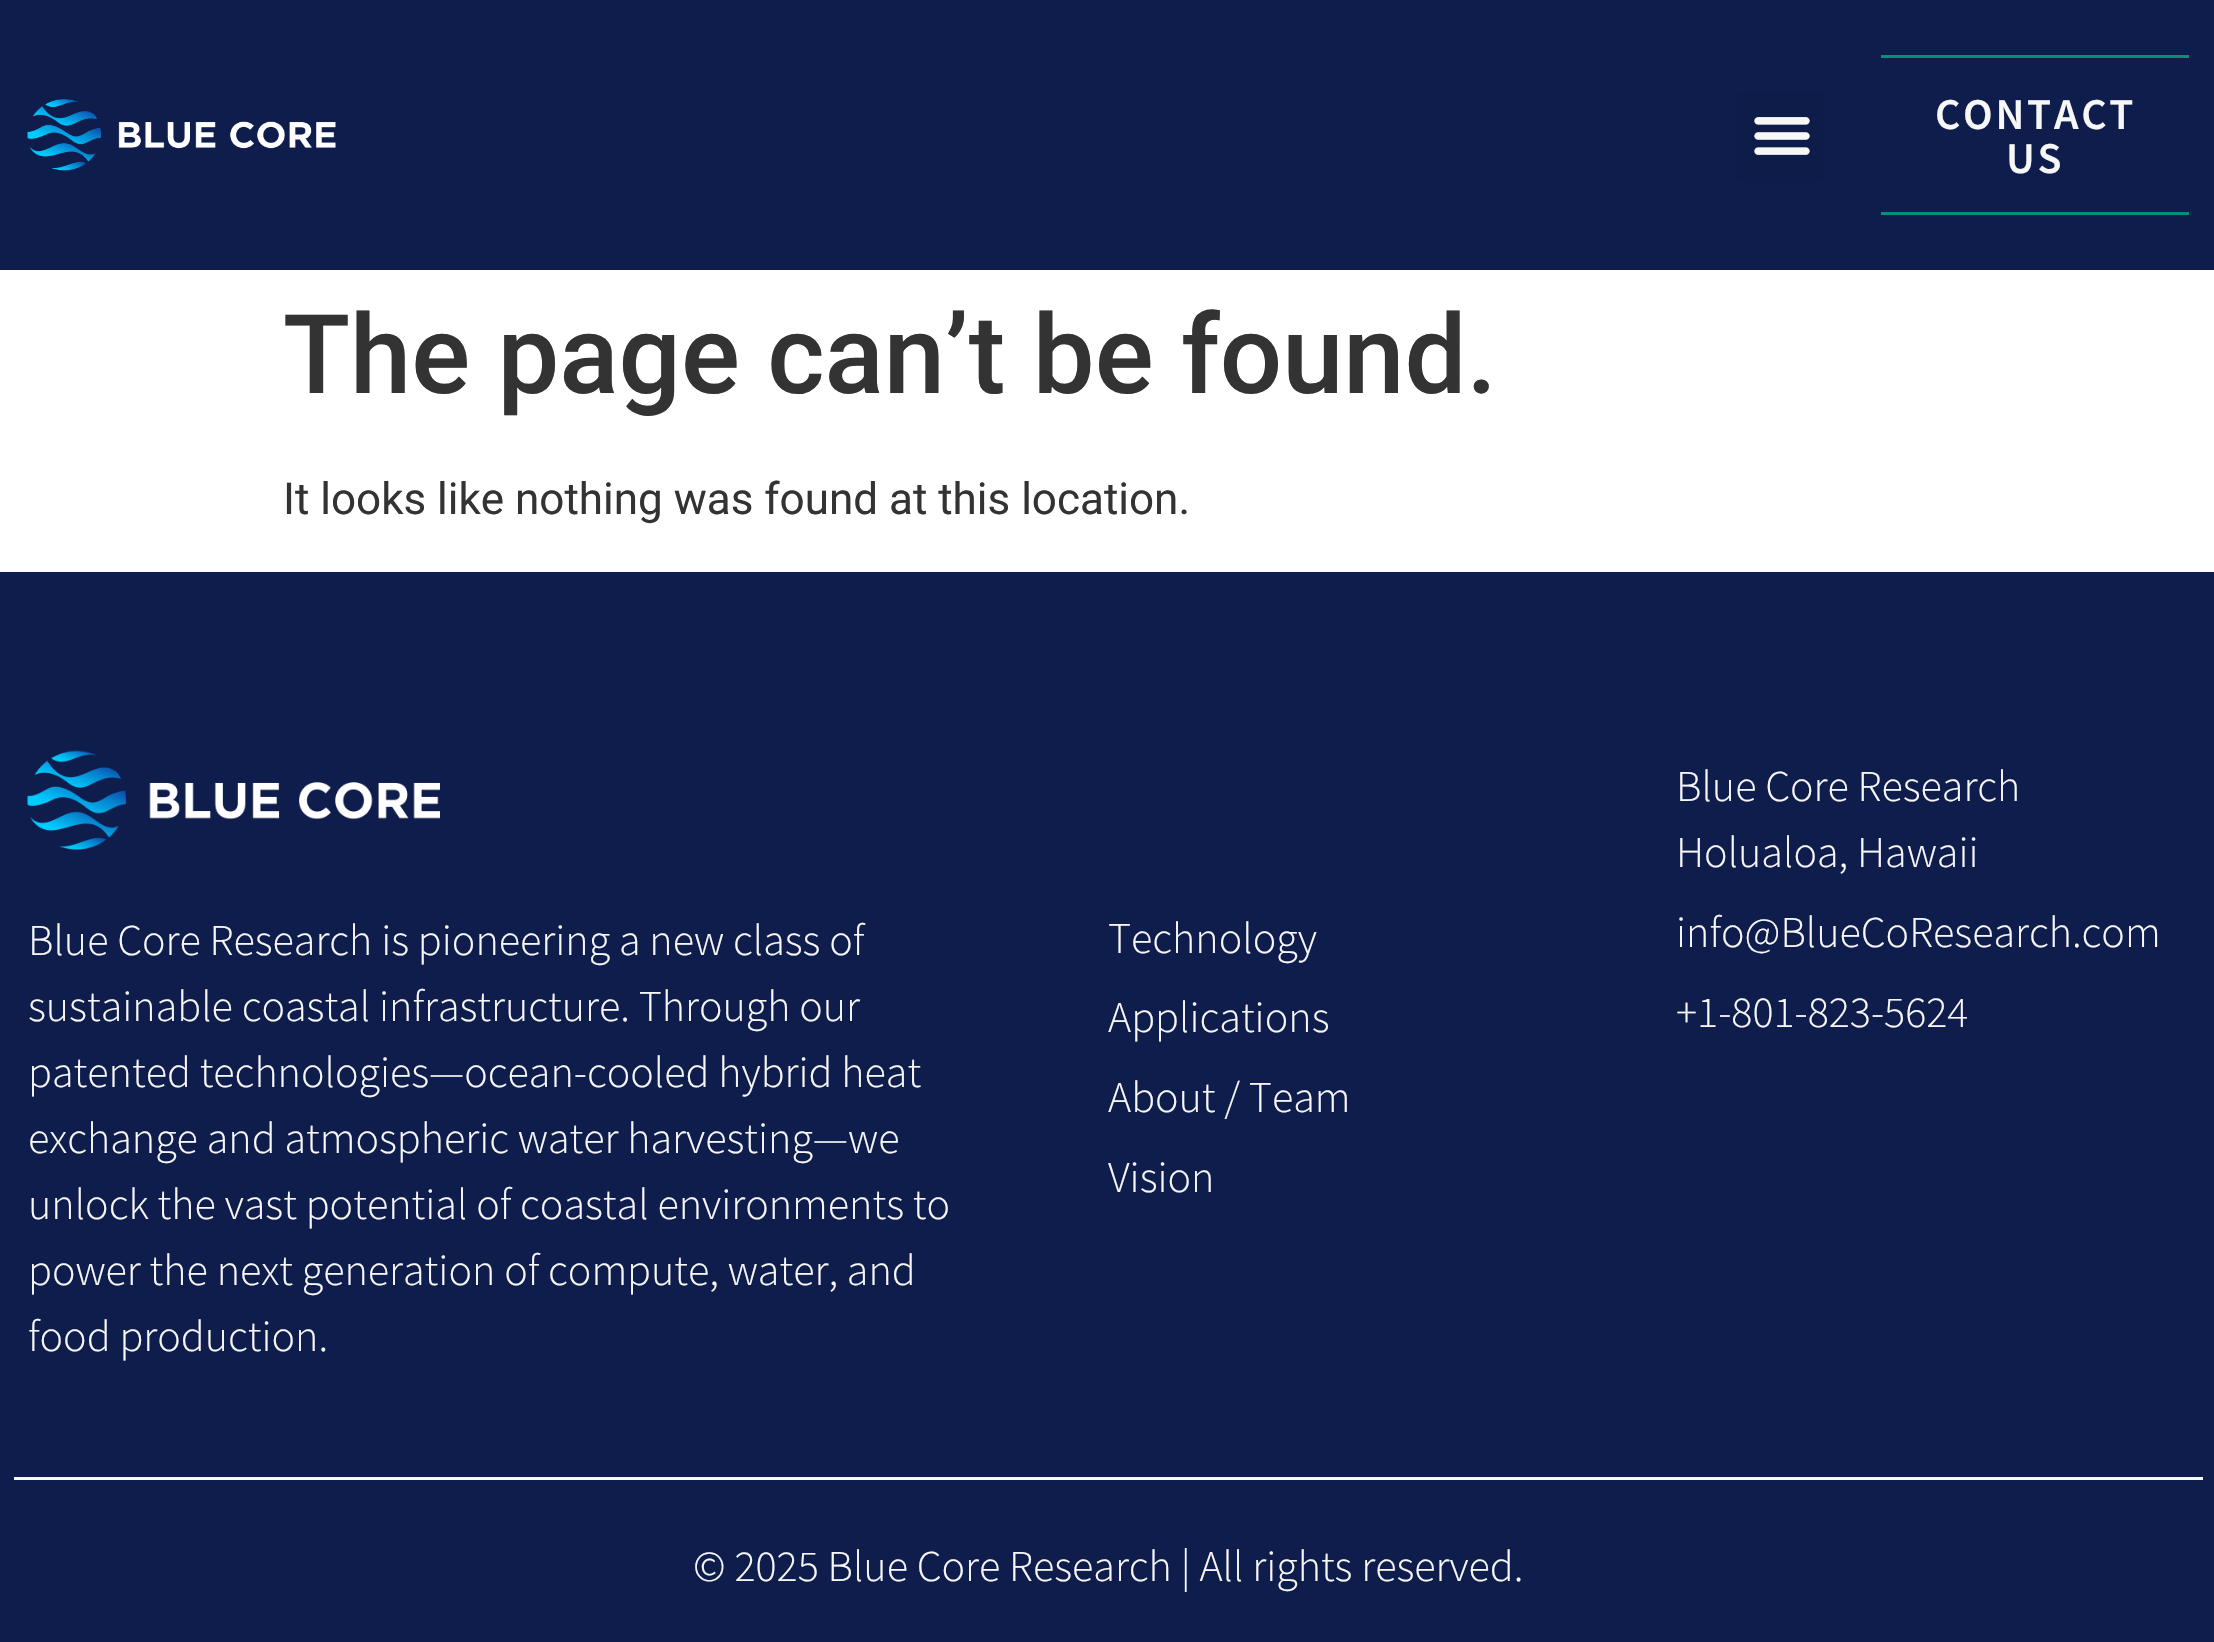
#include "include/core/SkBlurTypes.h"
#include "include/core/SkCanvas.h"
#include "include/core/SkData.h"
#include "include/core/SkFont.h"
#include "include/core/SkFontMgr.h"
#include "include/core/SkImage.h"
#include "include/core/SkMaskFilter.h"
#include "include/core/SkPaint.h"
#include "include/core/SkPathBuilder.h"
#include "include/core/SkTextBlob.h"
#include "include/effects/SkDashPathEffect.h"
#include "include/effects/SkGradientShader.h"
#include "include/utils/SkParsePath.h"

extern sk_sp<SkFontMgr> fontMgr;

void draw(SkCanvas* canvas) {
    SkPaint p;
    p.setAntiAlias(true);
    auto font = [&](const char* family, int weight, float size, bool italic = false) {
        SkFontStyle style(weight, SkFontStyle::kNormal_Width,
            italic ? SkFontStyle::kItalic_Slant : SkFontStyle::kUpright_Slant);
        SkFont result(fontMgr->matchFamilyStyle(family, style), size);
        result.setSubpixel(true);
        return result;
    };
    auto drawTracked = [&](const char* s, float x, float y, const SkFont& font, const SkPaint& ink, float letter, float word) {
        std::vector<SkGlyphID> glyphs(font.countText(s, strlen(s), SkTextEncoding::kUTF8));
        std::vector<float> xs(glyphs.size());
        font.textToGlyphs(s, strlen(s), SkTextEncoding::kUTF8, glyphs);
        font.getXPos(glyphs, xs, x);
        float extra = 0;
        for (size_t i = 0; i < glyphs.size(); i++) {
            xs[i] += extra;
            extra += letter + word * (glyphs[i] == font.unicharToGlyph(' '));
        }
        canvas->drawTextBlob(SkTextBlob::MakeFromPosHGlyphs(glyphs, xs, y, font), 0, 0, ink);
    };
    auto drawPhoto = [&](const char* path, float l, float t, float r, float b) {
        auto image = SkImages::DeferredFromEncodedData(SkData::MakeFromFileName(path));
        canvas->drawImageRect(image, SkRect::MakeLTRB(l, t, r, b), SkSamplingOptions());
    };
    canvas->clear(0xFFFFFFFF);
    p.setColor(0xFF0F1D4D);
    canvas->drawRect(SkRect::MakeLTRB(0, 0, 2214, 270), p);
    drawPhoto("media/1.png", 27, 99, 336, 171);
    p.setColor(0xFF0E1C49);
    canvas->drawRoundRect(SkRect::MakeLTRB(1735, 91, 1826, 182), 8, 8, p);
    drawPhoto("media/2.png", 1754, 117, 1810, 155);
    p.setColor(0xFF009176);
    canvas->drawRect(SkRect::MakeLTRB(1881, 55, 2189, 58), p);
    canvas->drawRect(SkRect::MakeLTRB(1881, 212, 2189, 215), p);
    auto font1 = font("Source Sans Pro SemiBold", 600, 44);
    p.setColor(0xFFF7F7F7);
    drawTracked("CONTACT", 1935, 129, font1, p, 2.75f, 0);
    drawTracked("US", 2006, 173, font1, p, 2.75f, 0);
    auto font2 = font("Roboto", 500, 110);
    p.setColor(0xFF333333);
    canvas->drawString("The page can’t be found.", 283, 393, font2, p);
    auto font3 = font("Roboto", 400, 44);
    canvas->drawString("It looks like nothing was found at this location.", 283, 514, font3, p);
    p.setColor(0xFF0F1D4D);
    canvas->drawRect(SkRect::MakeLTRB(0, 572, 2214, 1642), p);
    drawPhoto("media/3.png", 27, 750, 440, 850);
    auto font4 = font("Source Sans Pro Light", 300, 44);
    p.setColor(0xFFF7F7F7);
    {
        const struct { const char* s; float x, y; } items[] = {
            {"Blue Core Research is pioneering a new class of", 28, 955},
            {"sustainable coastal infrastructure. Through our", 28, 1021},
            {"patented technologies—ocean-cooled hybrid heat", 28, 1087},
            {"exchange and atmospheric water harvesting—we", 28, 1153},
            {"unlock the vast potential of coastal environments to", 28, 1219},
            {"power the next generation of compute, water, and", 28, 1285},
            {"food production.", 28, 1351},
            {"Technology", 1108, 953},
            {"Applications", 1108, 1032},
            {"About / Team", 1108, 1112},
            {"Vision", 1108, 1192},
            {"Blue Core Research", 1676, 801},
            {"Holualoa, Hawaii", 1676, 867},
            {"info@BlueCoResearch.com", 1676, 947},
            {"+1-801-823-5624", 1676, 1027},
        };
        for (auto [s, x, y] : items) {
            canvas->drawString(s, x, y, font4, p);
        }
    }
    canvas->drawRect(SkRect::MakeLTRB(14, 1477, 2203, 1480), p);
    canvas->drawString("© 2025 Blue Core Research | All rights reserved.", 693, 1581, font4, p);
}
